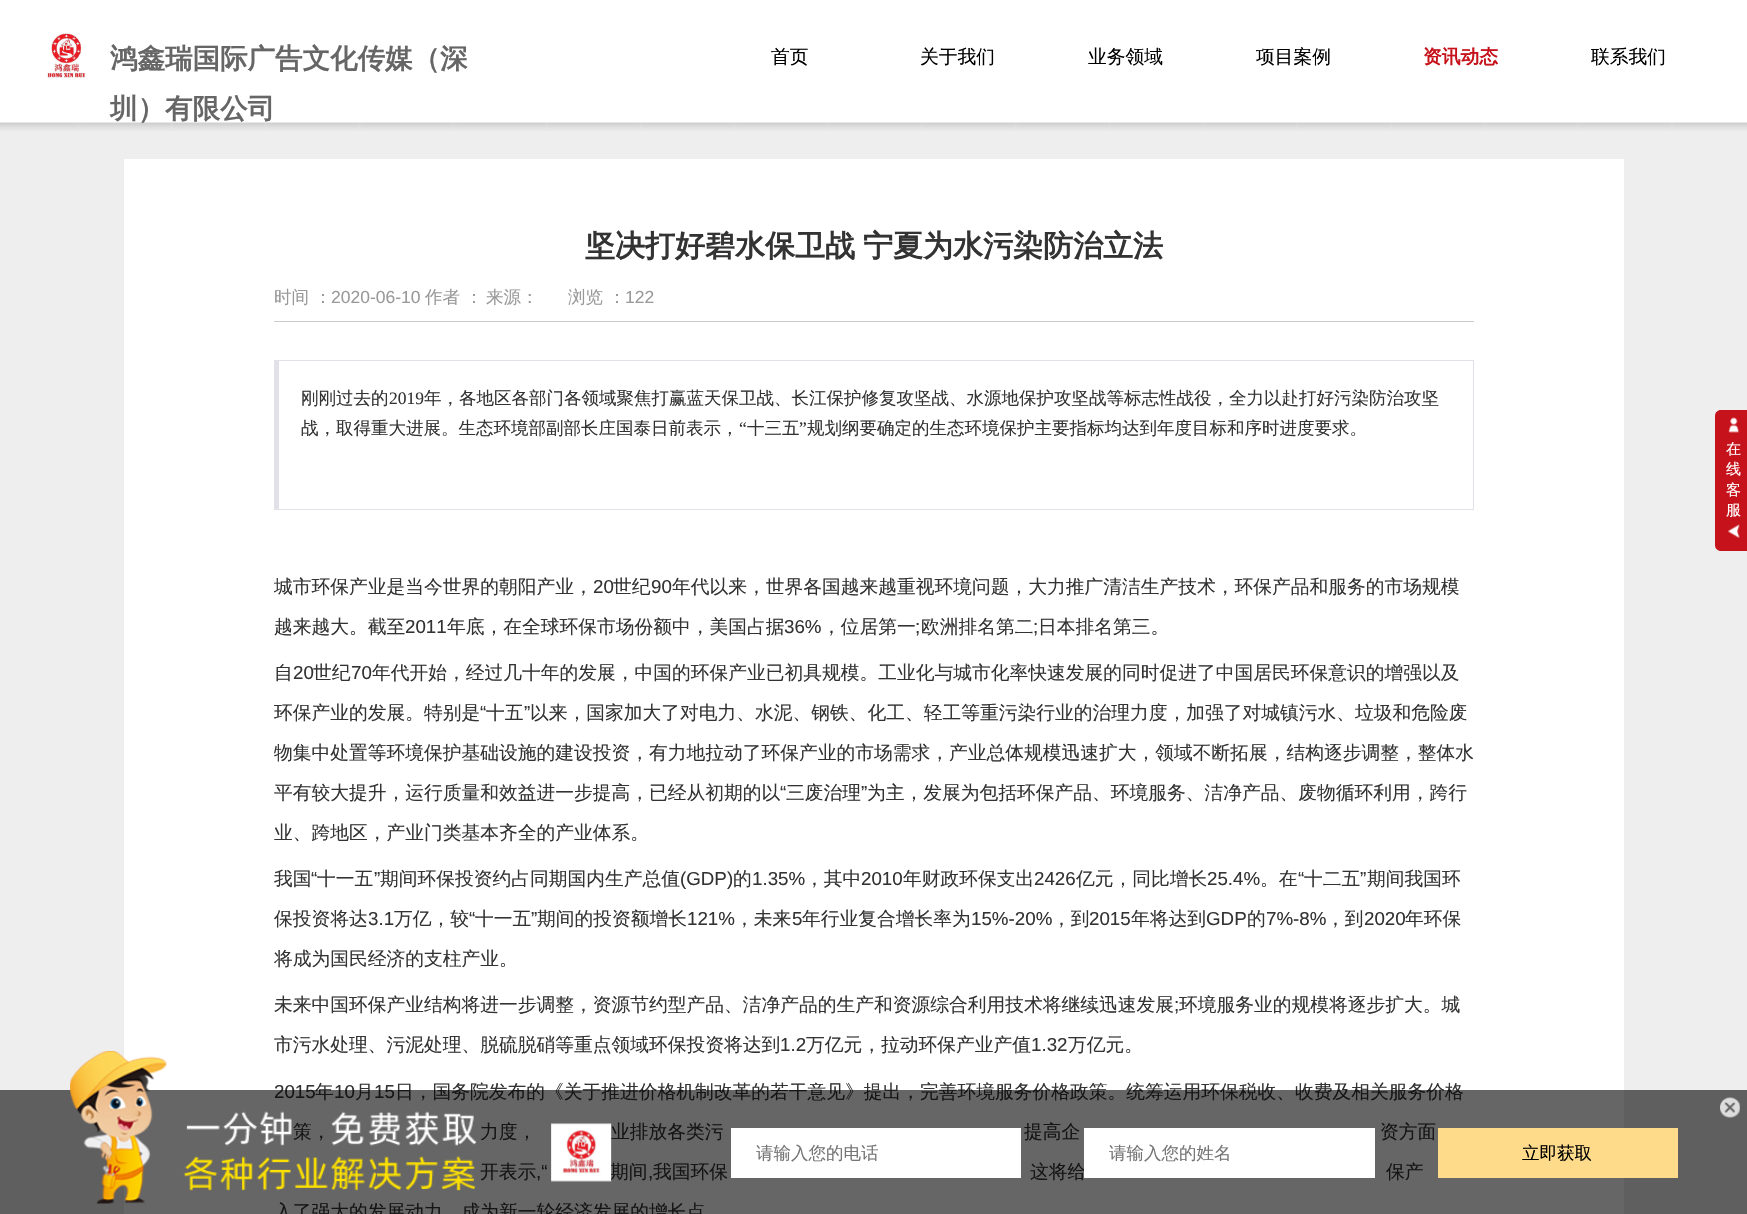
#include "include/core/SkBlurTypes.h"
#include "include/core/SkCanvas.h"
#include "include/core/SkData.h"
#include "include/core/SkFont.h"
#include "include/core/SkFontMgr.h"
#include "include/core/SkImage.h"
#include "include/core/SkMaskFilter.h"
#include "include/core/SkPaint.h"
#include "include/core/SkPathBuilder.h"
#include "include/core/SkTextBlob.h"
#include "include/effects/SkDashPathEffect.h"
#include "include/effects/SkGradientShader.h"
#include "include/utils/SkParsePath.h"

extern sk_sp<SkFontMgr> fontMgr;

void draw(SkCanvas* canvas) {
    SkPaint p;
    p.setAntiAlias(true);
    auto font = [&](const char* family, int weight, float size, bool italic = false) {
        SkFontStyle style(weight, SkFontStyle::kNormal_Width,
            italic ? SkFontStyle::kItalic_Slant : SkFontStyle::kUpright_Slant);
        SkFont result(fontMgr->matchFamilyStyle(family, style), size);
        result.setSubpixel(true);
        return result;
    };
    auto drawTracked = [&](const char* s, float x, float y, const SkFont& font, const SkPaint& ink, float letter, float word) {
        std::vector<SkGlyphID> glyphs(font.countText(s, strlen(s), SkTextEncoding::kUTF8));
        std::vector<float> xs(glyphs.size());
        font.textToGlyphs(s, strlen(s), SkTextEncoding::kUTF8, glyphs);
        font.getXPos(glyphs, xs, x);
        float extra = 0;
        for (size_t i = 0; i < glyphs.size(); i++) {
            xs[i] += extra;
            extra += letter + word * (glyphs[i] == font.unicharToGlyph(' '));
        }
        canvas->drawTextBlob(SkTextBlob::MakeFromPosHGlyphs(glyphs, xs, y, font), 0, 0, ink);
    };
    auto drawPhoto = [&](const char* path, float l, float t, float r, float b) {
        auto image = SkImages::DeferredFromEncodedData(SkData::MakeFromFileName(path));
        canvas->drawImageRect(image, SkRect::MakeLTRB(l, t, r, b), SkSamplingOptions());
    };
    canvas->clear(0xFFEEEEEE);
    drawPhoto("media/1.png", 0, 0, 1747, 131);
    drawPhoto("media/2.png", 46, 32, 87, 78);
    auto font1 = font("WenQuanYi Zen Hei", 700, 27.5f);
    p.setColor(0xFF666666);
    canvas->drawString("鸿鑫瑞国际广告文化传媒（深", 110, 68, font1, p);
    canvas->drawString("圳）有限公司", 110, 118, font1, p);
    auto font2 = font("WenQuanYi Zen Hei", 500, 18.75f);
    p.setColor(0xFF000000);
    {
        const struct { const char* s; float x, y; } items[] = {
            {"首页", 771, 63},
            {"关于我们", 920, 63},
            {"业务领域", 1088, 63},
            {"项目案例", 1256, 63},
        };
        for (auto [s, x, y] : items) {
            canvas->drawString(s, x, y, font2, p);
        }
    }
    auto font3 = font("WenQuanYi Zen Hei", 700, 18.75f);
    p.setColor(0xFFC6121B);
    canvas->drawString("资讯动态", 1423, 63, font3, p);
    p.setColor(0xFF000000);
    canvas->drawString("联系我们", 1591, 63, font2, p);
    p.setColor(0xFFFFFFFF);
    canvas->drawRect(SkRect::MakeLTRB(124, 159, 1624, 1214), p);
    auto font4 = font("WenQuanYi Zen Hei", 700, 30);
    p.setColor(0xFF333333);
    drawTracked("坚决打好碧水保卫战 宁夏为水污染防治立法", 585, 256, font4, p, 0, -1);
    p.setColor(0xFFCCCCCC);
    canvas->drawRect(SkRect::MakeLTRB(274, 321, 1474, 322), p);
    auto font5 = font("WenQuanYi Zen Hei", 500, 17.5f);
    p.setColor(0xFF999999);
    canvas->drawString("时间 ：", 274, 303, font5, p);
    auto font6 = font("Liberation Sans", 400, 17.5f);
    canvas->drawString("2020-06-10", 331, 303, font6, p);
    {
        const struct { const char* s; float x, y; } items[] = {
            {"作者 ：", 425, 303},
            {"来源：", 486, 303},
            {"浏览 ：", 568, 303},
        };
        for (auto [s, x, y] : items) {
            canvas->drawString(s, x, y, font5, p);
        }
    }
    canvas->drawString("122", 625, 303, font6, p);
    {
        const struct { float l, t, r, b; SkColor color; } items[] = {
            {274, 360, 1474, 361, 0xFFE1E1E7},
            {1473, 360, 1474, 510, 0xFFE1E1E7},
            {274, 509, 1474, 510, 0xFFE1E1E7},
            {274, 360, 279, 510, 0xFFE1E1E7},
        };
        for (auto [l, t, r, b, color] : items) {
            p.setColor(color);
            canvas->drawRect(SkRect::MakeLTRB(l, t, r, b), p);
        }
    }
    p.setColor(0xFF333333);
    canvas->drawString("刚刚过去的", 301, 404, font5, p);
    auto font7 = font("Liberation Serif", 400, 17.5f);
    canvas->drawString("2019", 389, 404, font7, p);
    canvas->drawString("年，各地区各部门各领域聚焦打赢蓝天保卫战、长江保护修复攻坚战、水源地保护攻坚战等标志性战役，全力以赴打好污染防治攻坚", 424, 404, font5, p);
    canvas->drawString("战，取得重大进展。生态环境部副部长庄国泰日前表示，", 301, 434, font5, p);
    canvas->drawString("“", 739, 434, font7, p);
    canvas->drawString("十三五", 747, 434, font5, p);
    canvas->drawString("”", 799, 434, font7, p);
    canvas->drawString("规划纲要确定的生态环境保护主要指标均达到年度目标和序时进度要求。", 807, 434, font5, p);
    canvas->drawString("城市环保产业是当今世界的朝阳产业，", 274, 593, font2, p);
    auto font8 = font("Liberation Sans", 400, 18.75f);
    canvas->drawString("20", 593, 593, font8, p);
    canvas->drawString("世纪", 613, 593, font2, p);
    canvas->drawString("90", 651, 593, font8, p);
    canvas->drawString("年代以来，世界各国越来越重视环境问题，大力推广清洁生产技术，环保产品和服务的市场规模", 672, 593, font2, p);
    canvas->drawString("越来越大。截至", 274, 633, font2, p);
    canvas->drawString("2011", 405, 633, font8, p);
    canvas->drawString("年底，在全球环保市场份额中，美国占据", 447, 633, font2, p);
    canvas->drawString("36%", 784, 633, font8, p);
    canvas->drawString("，位居第一", 822, 633, font2, p);
    canvas->drawString(";", 915, 633, font8, p);
    canvas->drawString("欧洲排名第二", 921, 633, font2, p);
    canvas->drawString(";", 1033, 633, font8, p);
    canvas->drawString("日本排名第三。", 1038, 633, font2, p);
    canvas->drawString("自", 274, 679, font2, p);
    canvas->drawString("20", 293, 679, font8, p);
    canvas->drawString("世纪", 313, 679, font2, p);
    canvas->drawString("70", 351, 679, font8, p);
    canvas->drawString("年代开始，经过几十年的发展，中国的环保产业已初具规模。工业化与城市化率快速发展的同时促进了中国居民环保意识的增强以及", 372, 679, font2, p);
    canvas->drawString("环保产业的发展。特别是", 274, 719, font2, p);
    canvas->drawString("“", 480, 719, font8, p);
    canvas->drawString("十五", 486, 719, font2, p);
    canvas->drawString("”", 524, 719, font8, p);
    {
        const struct { const char* s; float x, y; } items[] = {
            {"以来，国家加大了对电力、水泥、钢铁、化工、轻工等重污染行业的治理力度，加强了对城镇污水、垃圾和危险废", 530, 719},
            {"物集中处置等环境保护基础设施的建设投资，有力地拉动了环保产业的市场需求，产业总体规模迅速扩大，领域不断拓展，结构逐步调整，整体水", 274, 759},
            {"平有较大提升，运行质量和效益进一步提高，已经从初期的以", 274, 799},
        };
        for (auto [s, x, y] : items) {
            canvas->drawString(s, x, y, font2, p);
        }
    }
    canvas->drawString("“", 780, 799, font8, p);
    canvas->drawString("三废治理", 786, 799, font2, p);
    canvas->drawString("”", 861, 799, font8, p);
    {
        const struct { const char* s; float x, y; } items[] = {
            {"为主，发展为包括环保产品、环境服务、洁净产品、废物循环利用，跨行", 867, 799},
            {"业、跨地区，产业门类基本齐全的产业体系。", 274, 839},
            {"我国", 274, 885},
        };
        for (auto [s, x, y] : items) {
            canvas->drawString(s, x, y, font2, p);
        }
    }
    canvas->drawString("“", 311, 885, font8, p);
    canvas->drawString("十一五", 317, 885, font2, p);
    canvas->drawString("”", 374, 885, font8, p);
    canvas->drawString("期间环保投资约占同期国内生产总值", 380, 885, font2, p);
    canvas->drawString("(GDP)", 680, 885, font8, p);
    canvas->drawString("的", 733, 885, font2, p);
    canvas->drawString("1.35%", 752, 885, font8, p);
    canvas->drawString("，其中", 805, 885, font2, p);
    canvas->drawString("2010", 861, 885, font8, p);
    canvas->drawString("年财政环保支出", 903, 885, font2, p);
    canvas->drawString("2426", 1034, 885, font8, p);
    canvas->drawString("亿元，同比增长", 1076, 885, font2, p);
    canvas->drawString("25.4%", 1207, 885, font8, p);
    canvas->drawString("。在", 1260, 885, font2, p);
    canvas->drawString("“", 1298, 885, font8, p);
    canvas->drawString("十二五", 1304, 885, font2, p);
    canvas->drawString("”", 1360, 885, font8, p);
    canvas->drawString("期间我国环", 1367, 885, font2, p);
    canvas->drawString("保投资将达", 274, 925, font2, p);
    canvas->drawString("3.1", 368, 925, font8, p);
    canvas->drawString("万亿，较", 394, 925, font2, p);
    canvas->drawString("“", 469, 925, font8, p);
    canvas->drawString("十一五", 475, 925, font2, p);
    canvas->drawString("”", 531, 925, font8, p);
    canvas->drawString("期间的投资额增长", 537, 925, font2, p);
    canvas->drawString("121%", 687, 925, font8, p);
    canvas->drawString("，未来", 735, 925, font2, p);
    canvas->drawString("5", 792, 925, font8, p);
    canvas->drawString("年行业复合增长率为", 802, 925, font2, p);
    canvas->drawString("15%-20%", 971, 925, font8, p);
    canvas->drawString("，到", 1052, 925, font2, p);
    canvas->drawString("2015", 1089, 925, font8, p);
    canvas->drawString("年将达到", 1131, 925, font2, p);
    canvas->drawString("GDP", 1206, 925, font8, p);
    canvas->drawString("的", 1247, 925, font2, p);
    canvas->drawString("7%-8%", 1266, 925, font8, p);
    canvas->drawString("，到", 1326, 925, font2, p);
    canvas->drawString("2020", 1364, 925, font8, p);
    {
        const struct { const char* s; float x, y; } items[] = {
            {"年环保", 1405, 925},
            {"将成为国民经济的支柱产业。", 274, 965},
            {"未来中国环保产业结构将进一步调整，资源节约型产品、洁净产品的生产和资源综合利用技术将继续迅速发展", 274, 1011},
        };
        for (auto [s, x, y] : items) {
            canvas->drawString(s, x, y, font2, p);
        }
    }
    canvas->drawString(";", 1174, 1011, font8, p);
    canvas->drawString("环境服务业的规模将逐步扩大。城", 1179, 1011, font2, p);
    canvas->drawString("市污水处理、污泥处理、脱硫脱硝等重点领域环保投资将达到", 274, 1051, font2, p);
    canvas->drawString("1.2", 780, 1051, font8, p);
    canvas->drawString("万亿元，拉动环保产业产值", 806, 1051, font2, p);
    canvas->drawString("1.32", 1031, 1051, font8, p);
    canvas->drawString("万亿元。", 1068, 1051, font2, p);
    canvas->drawString("2015", 274, 1098, font8, p);
    canvas->drawString("年", 315, 1098, font2, p);
    canvas->drawString("10", 334, 1098, font8, p);
    canvas->drawString("月", 355, 1098, font2, p);
    canvas->drawString("15", 374, 1098, font8, p);
    {
        const struct { const char* s; float x, y; } items[] = {
            {"日，国务院发布的《关于推进价格机制改革的若干意见》提出，完善环境服务价格政策。统筹运用环保税收、收费及相关服务价格", 395, 1098},
            {"策，", 293, 1138},
            {"力度，", 480, 1138},
            {"业排放各类污", 611, 1138},
            {"提高企", 1024, 1138},
            {"资方面", 1380, 1138},
            {"开表示", 480, 1178},
        };
        for (auto [s, x, y] : items) {
            canvas->drawString(s, x, y, font2, p);
        }
    }
    canvas->drawString(",“", 536, 1178, font8, p);
    canvas->drawString("期间", 610, 1178, font2, p);
    canvas->drawString(",", 648, 1178, font8, p);
    {
        const struct { const char* s; float x, y; } items[] = {
            {"我国环保", 653, 1178},
            {"这将给", 1030, 1178},
            {"保产", 1386, 1178},
            {"入了强大的发展动力，成为新一轮经济发展的增长点", 274, 1218},
        };
        for (auto [s, x, y] : items) {
            canvas->drawString(s, x, y, font2, p);
        }
    }
    p.setColor(0xFFC6121B);
    canvas->drawPath(SkPathBuilder().moveTo(1721, 410).lineTo(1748, 410).lineTo(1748, 551).lineTo(1721, 551).cubicTo(1717.5f, 551, 1715, 548.5f, 1715, 545).lineTo(1715, 416).cubicTo(1715, 412.5f, 1717.5f, 410, 1721, 410).close().detach(), p);
    drawPhoto("media/3.png", 1728, 417, 1740, 433);
    auto font9 = font("WenQuanYi Zen Hei", 500, 15);
    p.setColor(0xFFFFFFFF);
    {
        const struct { const char* s; float x, y; } items[] = {
            {"在", 1726, 454},
            {"线", 1726, 474},
            {"客", 1726, 495},
            {"服", 1726, 515},
        };
        for (auto [s, x, y] : items) {
            canvas->drawString(s, x, y, font9, p);
        }
    }
    drawPhoto("media/4.png", 1728, 524, 1740, 538);
    p.setColor(0x99000000);
    canvas->drawRect(SkRect::MakeLTRB(0, 1090, 1747, 1214), p);
    drawPhoto("media/5.png", 1720, 1097, 1740, 1118);
    drawPhoto("media/6.png", 70, 1051, 477, 1204);
    drawPhoto("media/7.png", 551, 1123, 612, 1182);
    p.setColor(0xFFFFFFFF);
    canvas->drawRect(SkRect::MakeLTRB(731, 1128, 1021, 1178), p);
    p.setColor(0xFF757575);
    canvas->drawString("请输入您的电话", 756, 1159, font5, p);
    p.setColor(0xFFFFFFFF);
    canvas->drawRect(SkRect::MakeLTRB(1084, 1128, 1375, 1178), p);
    p.setColor(0xFF757575);
    canvas->drawString("请输入您的姓名", 1109, 1159, font5, p);
    p.setColor(0xFFFEDB8A);
    canvas->drawRect(SkRect::MakeLTRB(1438, 1128, 1678, 1178), p);
    p.setColor(0xFF000000);
    canvas->drawString("立即获取", 1522, 1159, font5, p);
}
